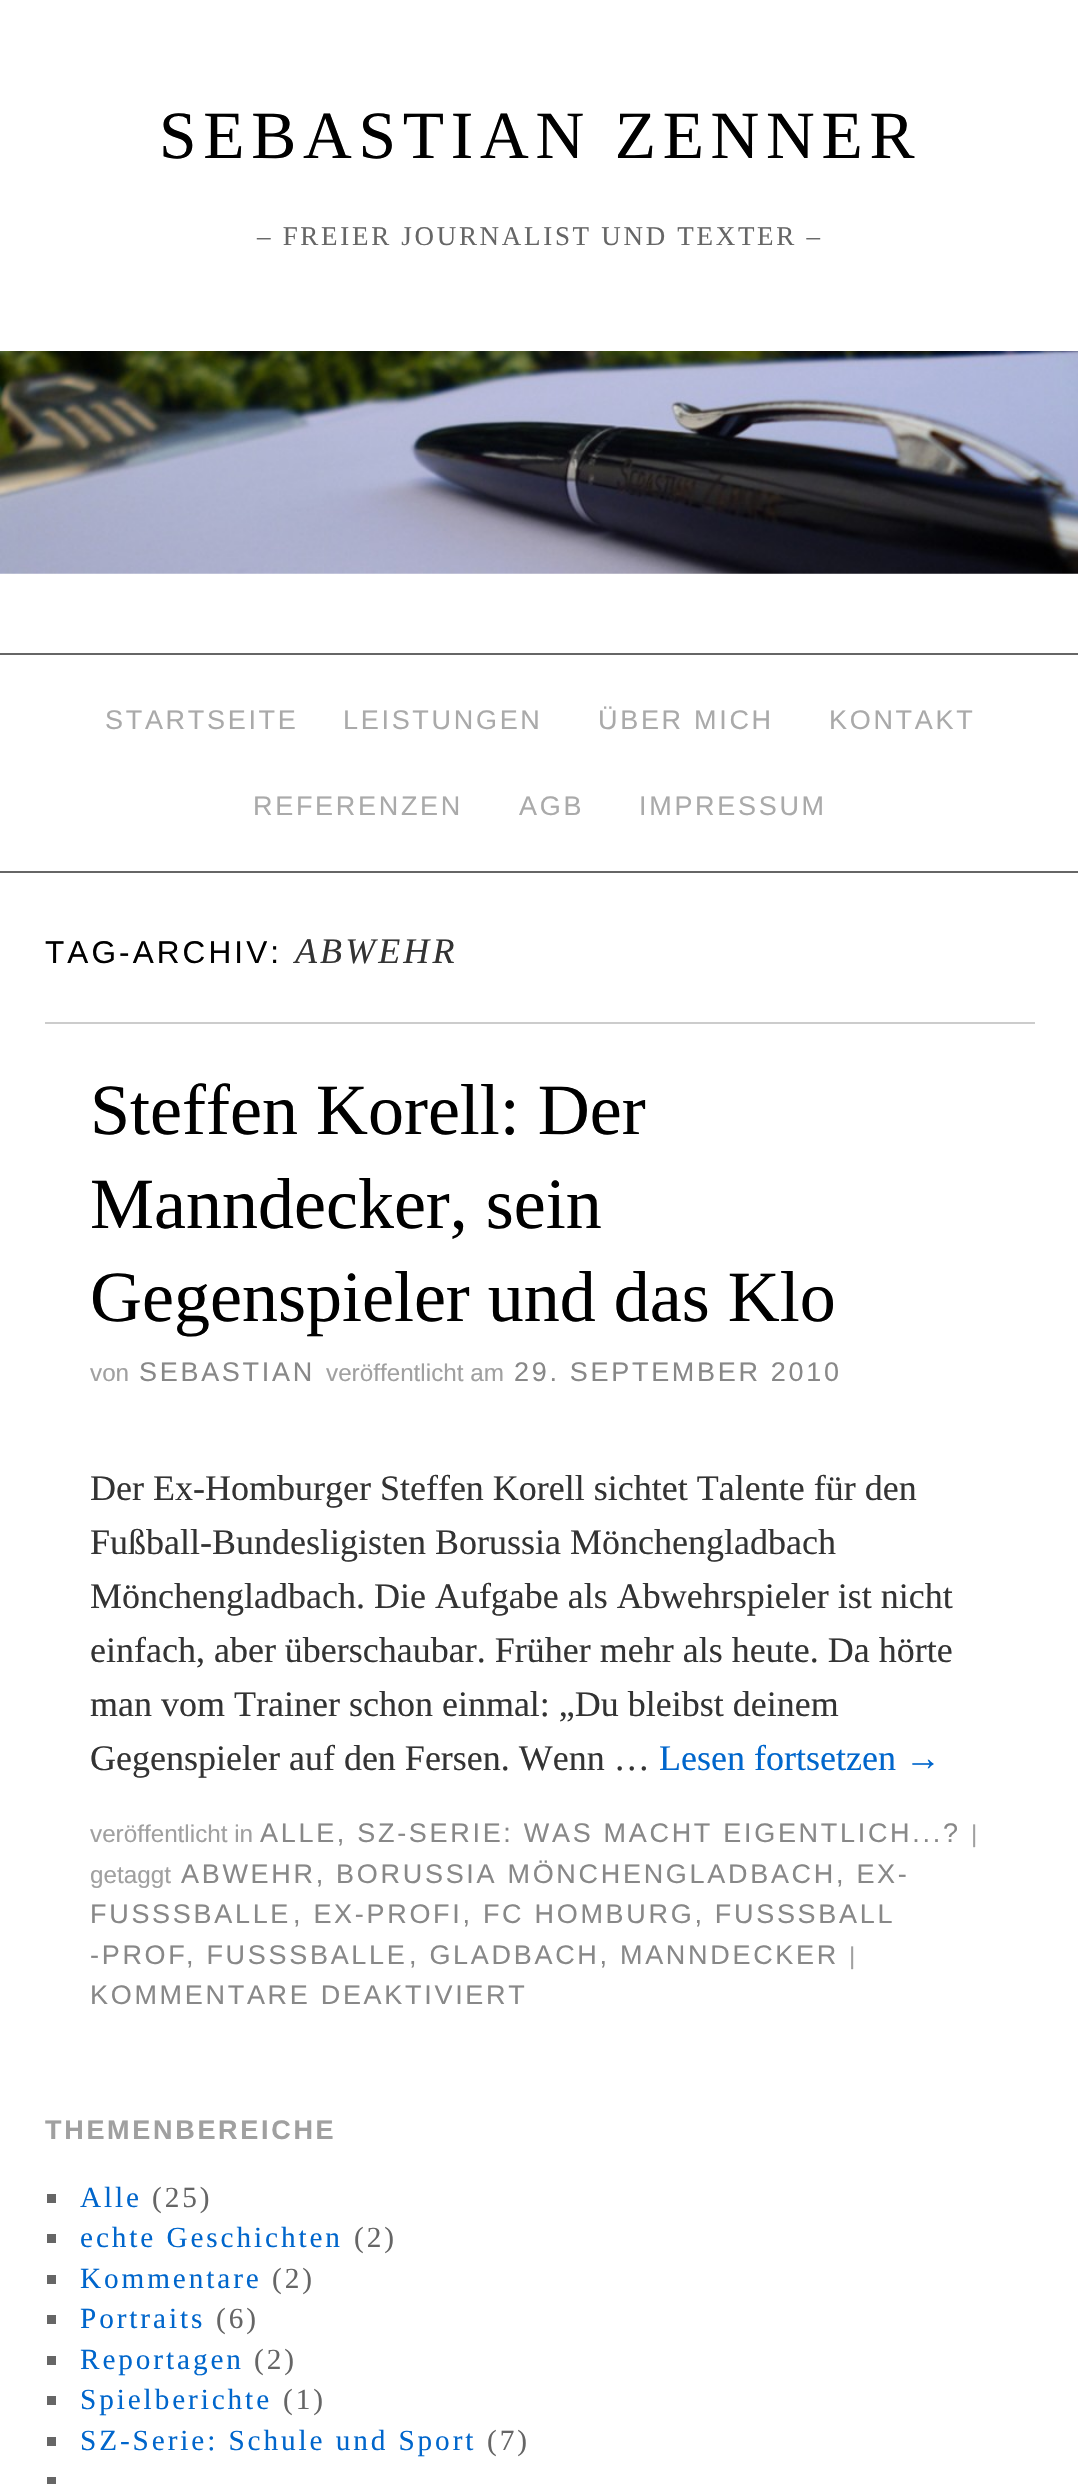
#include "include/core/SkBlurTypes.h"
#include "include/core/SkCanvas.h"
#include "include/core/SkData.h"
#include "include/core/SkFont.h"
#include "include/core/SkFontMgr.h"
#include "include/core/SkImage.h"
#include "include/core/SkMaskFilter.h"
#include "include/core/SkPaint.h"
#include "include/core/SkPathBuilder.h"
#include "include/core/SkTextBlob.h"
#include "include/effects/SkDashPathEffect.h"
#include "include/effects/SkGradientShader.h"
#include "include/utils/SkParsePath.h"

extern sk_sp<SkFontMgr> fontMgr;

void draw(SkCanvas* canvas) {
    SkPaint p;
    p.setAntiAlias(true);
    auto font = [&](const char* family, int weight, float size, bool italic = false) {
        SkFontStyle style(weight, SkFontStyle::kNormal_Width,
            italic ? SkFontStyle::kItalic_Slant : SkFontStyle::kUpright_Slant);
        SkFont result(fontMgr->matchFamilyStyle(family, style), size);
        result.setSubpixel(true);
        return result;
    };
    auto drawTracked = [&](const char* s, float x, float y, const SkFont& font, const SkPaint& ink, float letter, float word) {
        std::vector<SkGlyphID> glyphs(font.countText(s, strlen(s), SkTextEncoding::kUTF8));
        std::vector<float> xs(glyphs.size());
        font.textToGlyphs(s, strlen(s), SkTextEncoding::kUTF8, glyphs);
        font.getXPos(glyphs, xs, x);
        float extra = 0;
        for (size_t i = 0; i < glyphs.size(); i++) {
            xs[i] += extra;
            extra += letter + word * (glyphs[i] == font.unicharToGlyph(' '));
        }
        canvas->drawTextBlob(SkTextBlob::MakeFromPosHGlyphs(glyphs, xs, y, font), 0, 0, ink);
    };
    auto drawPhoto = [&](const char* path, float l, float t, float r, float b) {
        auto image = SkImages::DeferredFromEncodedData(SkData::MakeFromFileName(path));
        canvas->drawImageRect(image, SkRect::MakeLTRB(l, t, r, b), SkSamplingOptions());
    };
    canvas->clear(0xFFFFFFFF);
    auto font1 = font("Liberation Serif", 400, 67.5f);
    p.setColor(0xFF000000);
    drawTracked("SEBASTIAN ZENNER", 159, 158, font1, p, 6.75f, 0);
    auto font2 = font("Liberation Serif", 400, 27);
    p.setColor(0xFF666666);
    drawTracked("– FREIER JOURNALIST UND TEXTER –", 257, 245, font2, p, 2.7f, 0);
    drawPhoto("media/1.png", 0, 351, 1078, 574);
    canvas->drawRect(SkRect::MakeLTRB(0, 653, 1078, 655), p);
    canvas->drawRect(SkRect::MakeLTRB(0, 871, 1078, 873), p);
    auto font3 = font("Liberation Sans", 400, 27);
    p.setColor(0xFFAAAAAA);
    {
        const struct { const char* s; float x, y; } items[] = {
            {"STARTSEITE", 105, 729},
            {"LEISTUNGEN", 343, 729},
            {"ÜBER MICH", 598, 729},
            {"KONTAKT", 829, 729},
            {"REFERENZEN", 253, 815},
            {"AGB", 519, 815},
            {"IMPRESSUM", 639, 815},
        };
        for (auto [s, x, y] : items) {
            drawTracked(s, x, y, font3, p, 2.7f, 0);
        }
    }
    auto font4 = font("Liberation Sans", 400, 31.5f);
    p.setColor(0xFF000000);
    drawTracked("TAG-ARCHIV:", 45, 963, font4, p, 3.1f, 0);
    auto font5 = font("Liberation Serif", 400, 36, true);
    p.setColor(0xFF333333);
    drawTracked("ABWEHR", 295, 963, font5, p, 3.1f, 0);
    p.setColor(0xFFCCCCCC);
    canvas->drawRect(SkRect::MakeLTRB(45, 1022, 1035, 1024), p);
    auto font6 = font("Liberation Serif", 400, 72);
    p.setColor(0xFF000000);
    {
        const struct { const char* s; float x, y; } items[] = {
            {"Steffen Korell: Der", 90, 1134},
            {"Manndecker, sein", 90, 1228},
            {"Gegenspieler und das Klo", 90, 1321},
        };
        for (auto [s, x, y] : items) {
            canvas->drawString(s, x, y, font6, p);
        }
    }
    auto font7 = font("Liberation Sans", 400, 24.25f);
    p.setColor(0xFFA0A0A0);
    canvas->drawString("von", 90, 1381, font7, p);
    p.setColor(0xFF888888);
    drawTracked("SEBASTIAN", 139, 1381, font3, p, 2.7f, 0);
    p.setColor(0xFFA0A0A0);
    canvas->drawString("veröffentlicht am", 326, 1381, font7, p);
    p.setColor(0xFF888888);
    drawTracked("29. SEPTEMBER 2010", 514, 1381, font3, p, 2.7f, 0);
    auto font8 = font("Liberation Serif", 400, 36);
    p.setColor(0xFF333333);
    {
        const struct { const char* s; float x, y; } items[] = {
            {"Der Ex-Homburger Steffen Korell sichtet Talente für den", 90, 1500},
            {"Fußball-Bundesligisten Borussia Mönchengladbach", 90, 1554},
            {"Mönchengladbach. Die Aufgabe als Abwehrspieler ist nicht", 90, 1608},
            {"einfach, aber überschaubar. Früher mehr als heute. Da hörte", 90, 1662},
            {"man vom Trainer schon einmal: „Du bleibst deinem", 90, 1716},
            {"Gegenspieler auf den Fersen. Wenn …", 90, 1770},
        };
        for (auto [s, x, y] : items) {
            canvas->drawString(s, x, y, font8, p);
        }
    }
    p.setColor(0xFF0066CC);
    canvas->drawString("Lesen fortsetzen →", 659, 1770, font8, p);
    p.setColor(0xFFA0A0A0);
    canvas->drawString("veröffentlicht in", 90, 1842, font7, p);
    p.setColor(0xFF888888);
    drawTracked("ALLE, SZ-SERIE: WAS MACHT EIGENTLICH...?", 260, 1842, font3, p, 2.7f, 0);
    p.setColor(0xFFA0A0A0);
    canvas->drawString("|", 971, 1842, font7, p);
    canvas->drawString("getaggt", 90, 1883, font7, p);
    p.setColor(0xFF888888);
    {
        const struct { const char* s; float x, y; } items[] = {
            {"ABWEHR, BORUSSIA MÖNCHENGLADBACH, EX-", 181, 1883},
            {"FUSSSBALLE", 90, 1923},
            {", EX-PROFI, FC HOMBURG, FUSSSBALL", 293, 1923},
            {"-PROF", 90, 1964},
            {", FUSSSBALLE", 186, 1964},
            {", GLADBACH, MANNDECKER", 409, 1964},
        };
        for (auto [s, x, y] : items) {
            drawTracked(s, x, y, font3, p, 2.7f, 0);
        }
    }
    p.setColor(0xFFA0A0A0);
    canvas->drawString("|", 849, 1964, font7, p);
    p.setColor(0xFF888888);
    drawTracked("KOMMENTARE DEAKTIVIERT", 90, 2004, font3, p, 2.7f, 0);
    auto font9 = font("Liberation Sans", 700, 27);
    p.setColor(0xFFA0A0A0);
    drawTracked("THEMENBEREICHE", 45, 2139, font9, p, 2.7f, 0);
    p.setColor(0xFF666666);
    canvas->drawRect(SkRect::MakeLTRB(47, 2194, 56, 2203), p);
    auto font10 = font("Liberation Serif", 400, 29.25f);
    p.setColor(0xFF0066CC);
    drawTracked("Alle", 80, 2207, font10, p, 2.9f, 0);
    p.setColor(0xFF666666);
    drawTracked("(25)", 152, 2207, font10, p, 2.9f, 0);
    canvas->drawRect(SkRect::MakeLTRB(47, 2234, 56, 2243), p);
    p.setColor(0xFF0066CC);
    drawTracked("echte Geschichten", 80, 2247, font10, p, 2.9f, 0);
    p.setColor(0xFF666666);
    drawTracked("(2)", 354, 2247, font10, p, 2.9f, 0);
    canvas->drawRect(SkRect::MakeLTRB(47, 2275, 56, 2284), p);
    p.setColor(0xFF0066CC);
    drawTracked("Kommentare", 80, 2288, font10, p, 2.9f, 0);
    p.setColor(0xFF666666);
    drawTracked("(2)", 272, 2288, font10, p, 2.9f, 0);
    canvas->drawRect(SkRect::MakeLTRB(47, 2315, 56, 2324), p);
    p.setColor(0xFF0066CC);
    drawTracked("Portraits", 80, 2328, font10, p, 2.9f, 0);
    p.setColor(0xFF666666);
    drawTracked("(6)", 216, 2328, font10, p, 2.9f, 0);
    canvas->drawRect(SkRect::MakeLTRB(47, 2356, 56, 2365), p);
    p.setColor(0xFF0066CC);
    drawTracked("Reportagen", 80, 2369, font10, p, 2.9f, 0);
    p.setColor(0xFF666666);
    drawTracked("(2)", 254, 2369, font10, p, 2.9f, 0);
    canvas->drawRect(SkRect::MakeLTRB(47, 2396, 56, 2405), p);
    p.setColor(0xFF0066CC);
    drawTracked("Spielberichte", 80, 2409, font10, p, 2.9f, 0);
    p.setColor(0xFF666666);
    drawTracked("(1)", 283, 2409, font10, p, 2.9f, 0);
    canvas->drawRect(SkRect::MakeLTRB(47, 2437, 56, 2446), p);
    p.setColor(0xFF0066CC);
    drawTracked("SZ-Serie: Schule und Sport", 80, 2450, font10, p, 2.9f, 0);
    p.setColor(0xFF666666);
    drawTracked("(7)", 487, 2450, font10, p, 2.9f, 0);
    canvas->drawRect(SkRect::MakeLTRB(47, 2477, 56, 2484), p);
}
